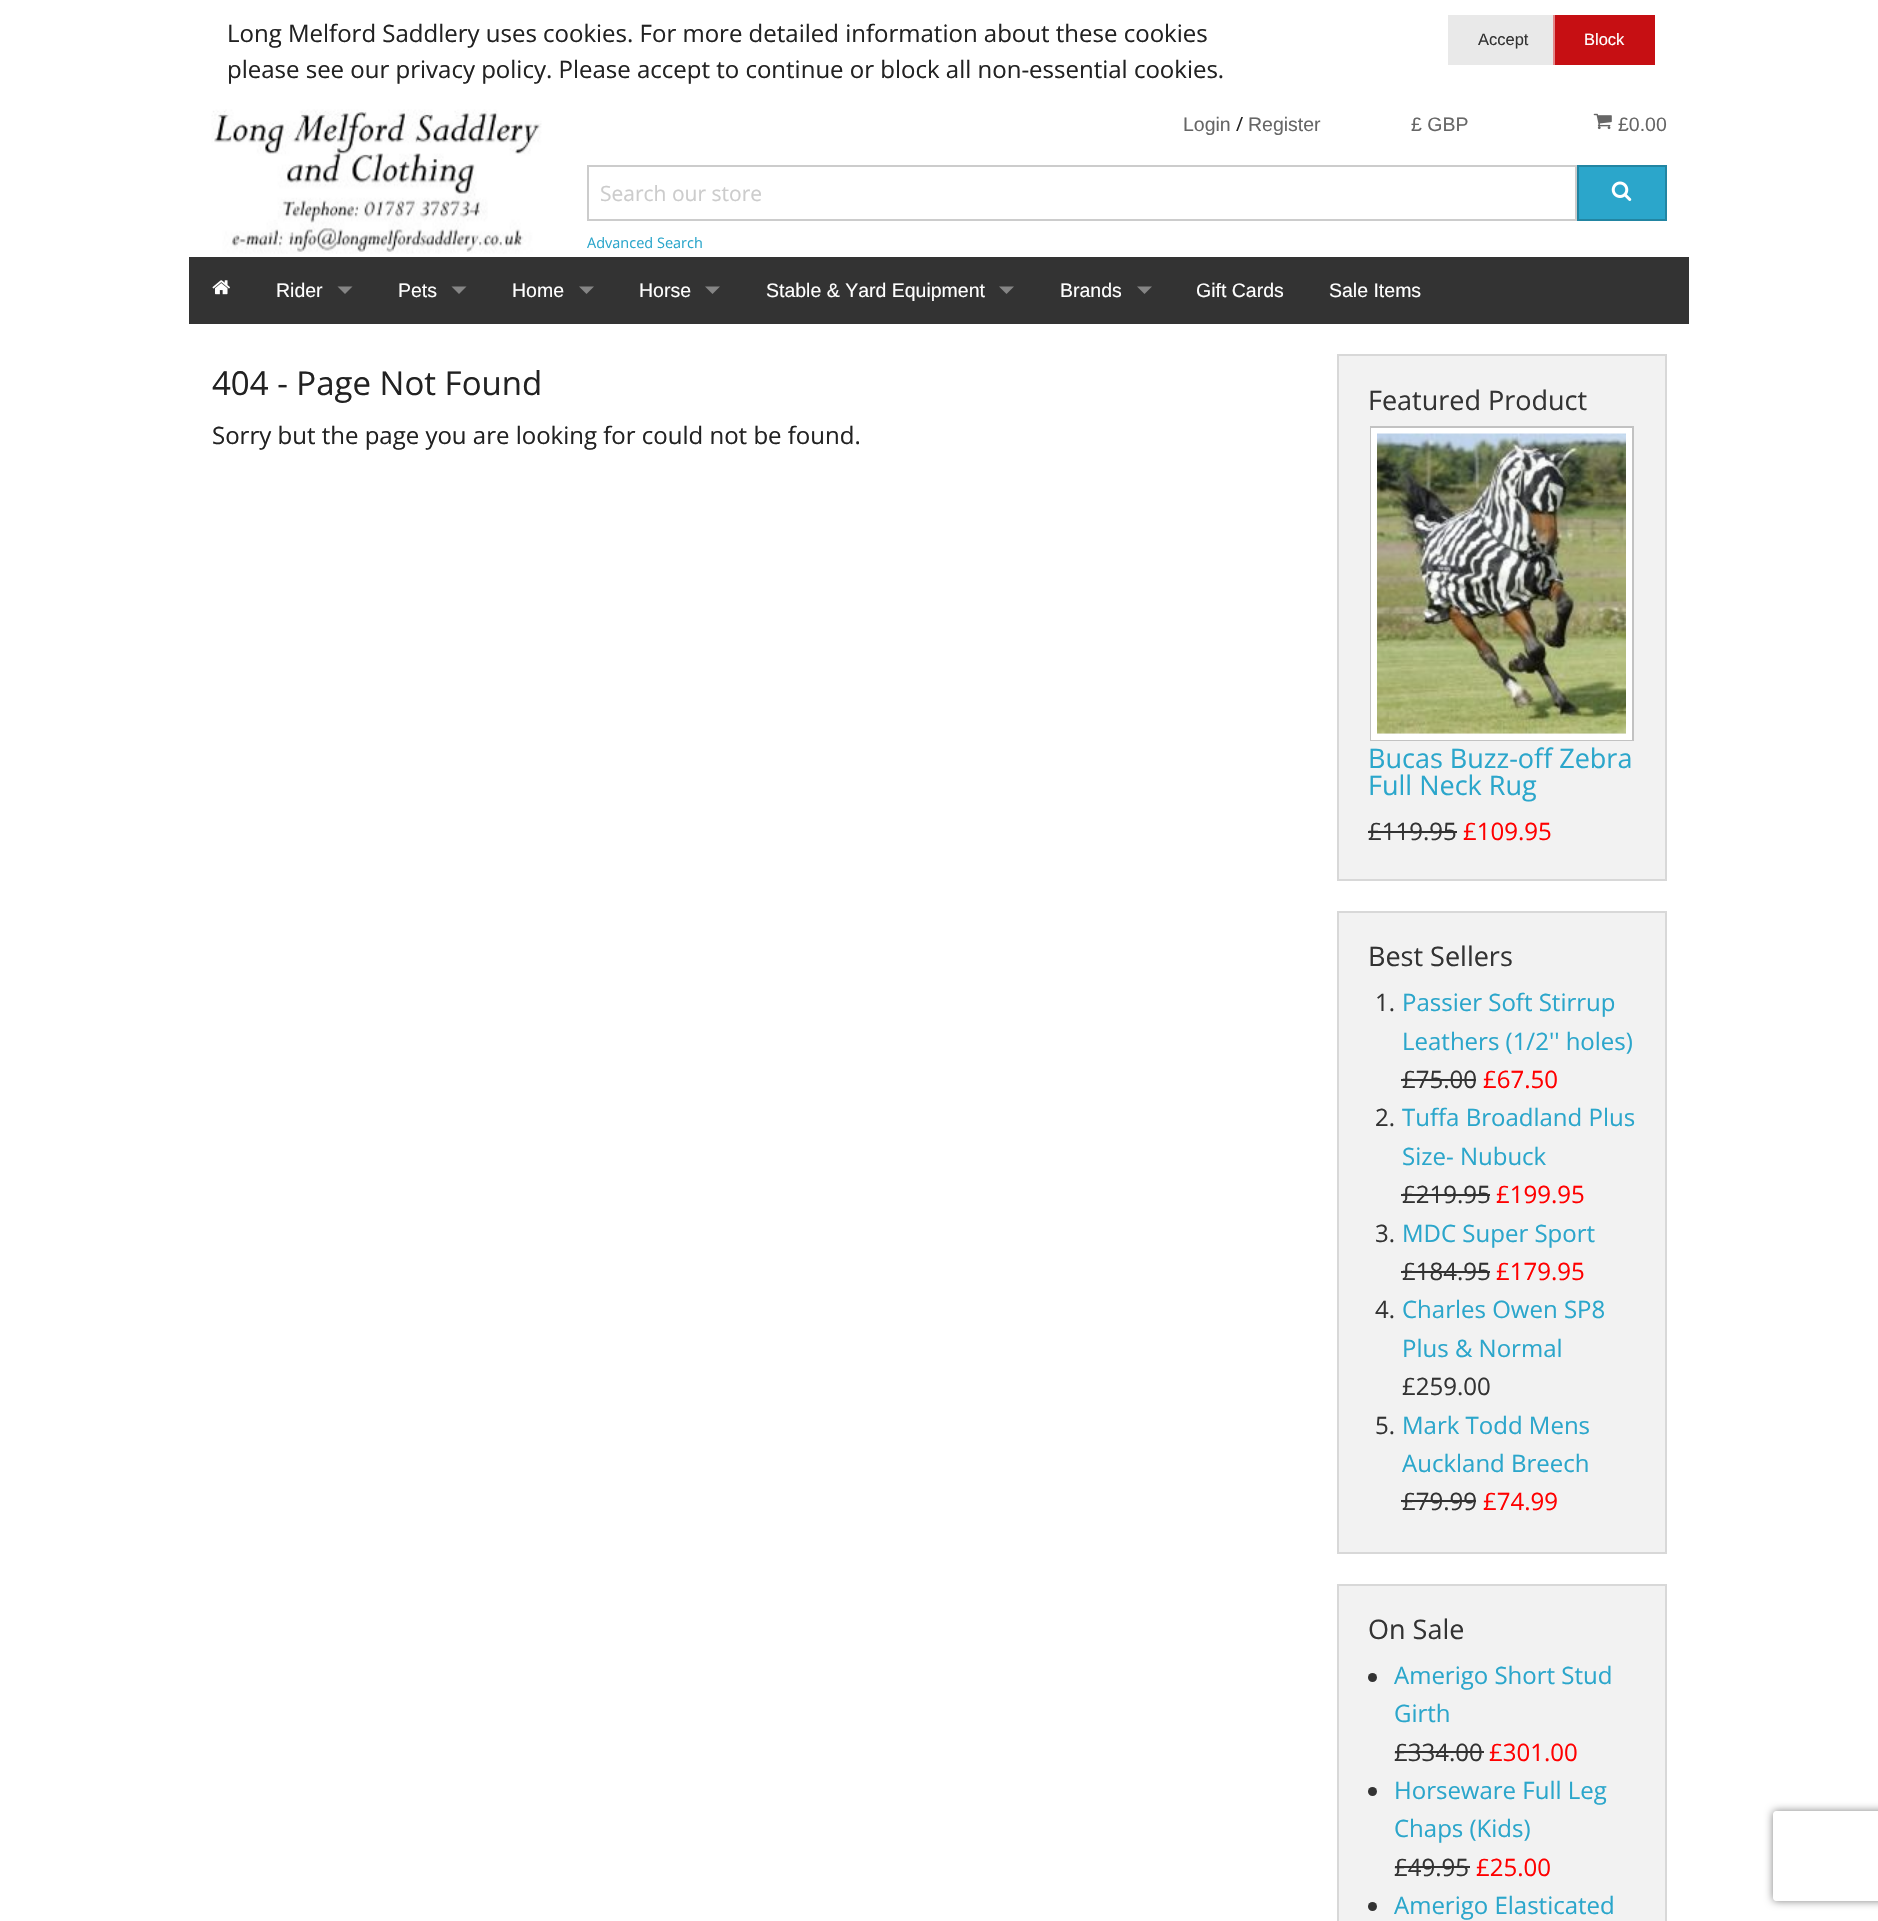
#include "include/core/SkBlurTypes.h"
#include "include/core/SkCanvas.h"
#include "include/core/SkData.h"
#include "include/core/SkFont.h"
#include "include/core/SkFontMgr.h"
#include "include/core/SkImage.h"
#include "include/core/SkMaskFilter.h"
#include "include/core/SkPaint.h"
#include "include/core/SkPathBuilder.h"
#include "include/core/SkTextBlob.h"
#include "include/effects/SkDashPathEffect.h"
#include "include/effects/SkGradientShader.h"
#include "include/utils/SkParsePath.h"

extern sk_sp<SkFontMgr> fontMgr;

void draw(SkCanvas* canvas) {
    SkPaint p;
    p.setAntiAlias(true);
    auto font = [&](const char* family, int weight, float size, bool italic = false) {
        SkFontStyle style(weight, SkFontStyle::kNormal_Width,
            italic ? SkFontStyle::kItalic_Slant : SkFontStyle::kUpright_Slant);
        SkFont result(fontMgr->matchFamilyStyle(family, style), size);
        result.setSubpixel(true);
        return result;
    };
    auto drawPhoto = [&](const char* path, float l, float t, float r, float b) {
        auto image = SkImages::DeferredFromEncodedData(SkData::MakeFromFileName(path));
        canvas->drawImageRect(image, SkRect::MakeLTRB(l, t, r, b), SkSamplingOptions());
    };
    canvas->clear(0xFFFFFFFF);
    auto font1 = font("Open Sans", 400, 24);
    p.setColor(0xFF222222);
    canvas->drawString("Long Melford Saddlery uses cookies. For more detailed information about these cookies", 227, 42, font1, p);
    canvas->drawString("please see our privacy policy. Please accept to continue or block all non-essential cookies.", 227, 78, font1, p);
    p.setColor(0xFFE9E9E9);
    canvas->drawRect(SkRect::MakeLTRB(1448, 15, 1553, 65), p);
    auto font2 = font("Liberation Sans", 400, 16.5f);
    p.setColor(0xFF333333);
    canvas->drawString("Accept", 1478, 45, font2, p);
    p.setColor(0xFFC60F13);
    canvas->drawRect(SkRect::MakeLTRB(1555, 15, 1655, 65), p);
    p.setColor(0xFFE38789);
    canvas->drawRect(SkRect::MakeLTRB(1553, 15, 1555, 65), p);
    p.setColor(0xFFFFFFFF);
    canvas->drawString("Block", 1584, 45, font2, p);
    drawPhoto("media/1.png", 211, 109, 542, 254);
    auto font3 = font("Liberation Sans", 400, 19.5f);
    p.setColor(0xFF666666);
    canvas->drawString("Login", 1183, 131, font3, p);
    auto font4 = font("Open Sans", 400, 19.5f);
    p.setColor(0xFF222222);
    canvas->drawString("/", 1236, 131, font4, p);
    p.setColor(0xFF666666);
    canvas->drawString("Register", 1248, 131, font3, p);
    canvas->drawString("£ GBP", 1411, 131, font3, p);
    drawPhoto("media/2.png", 1593, 113, 1612, 130);
    canvas->drawString("£0.00", 1618, 131, font3, p);
    p.setStyle(SkPaint::kStroke_Style);
    p.setStrokeWidth(2);
    p.setColor(0xFFCCCCCC);
    canvas->drawRect(SkRect::MakeLTRB(588, 166, 1576, 220), p);
    auto font5 = font("Open Sans", 400, 21);
    p.setStyle(SkPaint::kFill_Style);
    canvas->drawString("Search our store", 600, 201, font5, p);
    auto font6 = font("Open Sans", 400, 14.5f);
    p.setColor(0xFF2BA6CB);
    canvas->drawString("Advanced Search", 587, 248, font6, p);
    canvas->drawRect(SkRect::MakeLTRB(1578, 166, 1666, 220), p);
    p.setStyle(SkPaint::kStroke_Style);
    p.setColor(0xFF2285A2);
    canvas->drawRect(SkRect::MakeLTRB(1578, 166, 1666, 220), p);
    drawPhoto("media/3.png", 1611, 181, 1632, 201);
    p.setStyle(SkPaint::kFill_Style);
    p.setColor(0xFF333333);
    canvas->drawRect(SkRect::MakeLTRB(189, 257, 1689, 324), p);
    drawPhoto("media/4.png", 212, 280, 230, 295);
    p.setColor(0xFFFFFFFF);
    canvas->drawString("Rider", 276, 297, font3, p);
    p.setColor(0xFF858585);
    canvas->drawPath(SkPathBuilder().moveTo(337.5f, 286.5f).lineTo(352.5f, 286.5f).lineTo(345, 294).close().detach(), p);
    p.setColor(0xFFFFFFFF);
    canvas->drawString("Pets", 398, 297, font3, p);
    p.setColor(0xFF858585);
    canvas->drawPath(SkPathBuilder().moveTo(451.5f, 286.5f).lineTo(466.5f, 286.5f).lineTo(459, 294).close().detach(), p);
    p.setColor(0xFFFFFFFF);
    canvas->drawString("Home", 512, 297, font3, p);
    p.setColor(0xFF858585);
    canvas->drawPath(SkPathBuilder().moveTo(579, 286.5f).lineTo(594, 286.5f).lineTo(586.5f, 294).close().detach(), p);
    p.setColor(0xFFFFFFFF);
    canvas->drawString("Horse", 639, 297, font3, p);
    p.setColor(0xFF858585);
    canvas->drawPath(SkPathBuilder().moveTo(705, 286.5f).lineTo(720, 286.5f).lineTo(712.5f, 294).close().detach(), p);
    p.setColor(0xFFFFFFFF);
    canvas->drawString("Stable & Yard Equipment", 766, 297, font3, p);
    p.setColor(0xFF858585);
    canvas->drawPath(SkPathBuilder().moveTo(999, 286.5f).lineTo(1014, 286.5f).lineTo(1006.5f, 294).close().detach(), p);
    p.setColor(0xFFFFFFFF);
    canvas->drawString("Brands", 1060, 297, font3, p);
    p.setColor(0xFF858585);
    canvas->drawPath(SkPathBuilder().moveTo(1137, 286.5f).lineTo(1152, 286.5f).lineTo(1144.5f, 294).close().detach(), p);
    p.setColor(0xFFFFFFFF);
    canvas->drawString("Gift Cards", 1196, 297, font3, p);
    canvas->drawString("Sale Items", 1329, 297, font3, p);
    auto font7 = font("Open Sans", 400, 33);
    p.setColor(0xFF222222);
    canvas->drawString("404 - Page Not Found", 212, 395, font7, p);
    canvas->drawString("Sorry but the page you are looking for could not be found.", 212, 444, font1, p);
    p.setColor(0xFFF2F2F2);
    canvas->drawRect(SkRect::MakeLTRB(1338, 355, 1666, 880), p);
    p.setStyle(SkPaint::kStroke_Style);
    p.setColor(0xFFD8D8D8);
    canvas->drawRect(SkRect::MakeLTRB(1338, 355, 1666, 880), p);
    auto font8 = font("Open Sans", 400, 27);
    p.setStyle(SkPaint::kFill_Style);
    p.setColor(0xFF333333);
    canvas->drawString("Featured Product", 1368, 410, font8, p);
    p.setStyle(SkPaint::kStroke_Style);
    p.setColor(0xFFC2C2C2);
    canvas->drawRect(SkRect::MakeLTRB(1371, 427, 1633, 740), p);
    p.setStrokeWidth(6);
    p.setColor(0xFFFFFFFF);
    canvas->drawRect(SkRect::MakeLTRB(1374, 431, 1629, 737), p);
    drawPhoto("media/5.png", 1377, 433, 1626, 734);
    p.setStyle(SkPaint::kFill_Style);
    p.setColor(0xFF2BA6CB);
    canvas->drawString("Bucas Buzz-off Zebra", 1368, 768, font8, p);
    canvas->drawString("Full Neck Rug", 1368, 795, font8, p);
    p.setColor(0xFF333333);
    canvas->drawString("£119.95", 1368, 840, font1, p);
    canvas->drawRect(SkRect::MakeLTRB(1368, 831, 1457, 833), p);
    p.setColor(0xFFFF0000);
    canvas->drawString("£109.95", 1463, 840, font1, p);
    p.setColor(0xFFF2F2F2);
    canvas->drawRect(SkRect::MakeLTRB(1338, 912, 1666, 1553), p);
    p.setStyle(SkPaint::kStroke_Style);
    p.setStrokeWidth(2);
    p.setColor(0xFFD8D8D8);
    canvas->drawRect(SkRect::MakeLTRB(1338, 912, 1666, 1553), p);
    p.setStyle(SkPaint::kFill_Style);
    p.setColor(0xFF333333);
    canvas->drawString("Best Sellers", 1368, 966, font8, p);
    canvas->drawString("1.", 1375, 1011, font1, p);
    p.setColor(0xFF2BA6CB);
    canvas->drawString("Passier Soft Stirrup", 1402, 1011, font1, p);
    canvas->drawString("Leathers (1/2'' holes)", 1402, 1050, font1, p);
    p.setColor(0xFF333333);
    canvas->drawString("£75.00", 1402, 1088, font1, p);
    canvas->drawRect(SkRect::MakeLTRB(1401, 1079, 1476, 1081), p);
    p.setColor(0xFFFF0000);
    canvas->drawString("£67.50", 1483, 1088, font1, p);
    p.setColor(0xFF333333);
    canvas->drawString("2.", 1375, 1126, font1, p);
    p.setColor(0xFF2BA6CB);
    canvas->drawString("Tuffa Broadland Plus", 1402, 1126, font1, p);
    canvas->drawString("Size- Nubuck", 1402, 1165, font1, p);
    p.setColor(0xFF333333);
    canvas->drawString("£219.95", 1402, 1203, font1, p);
    canvas->drawRect(SkRect::MakeLTRB(1401, 1194, 1490, 1196), p);
    p.setColor(0xFFFF0000);
    canvas->drawString("£199.95", 1496, 1203, font1, p);
    p.setColor(0xFF333333);
    canvas->drawString("3.", 1375, 1242, font1, p);
    p.setColor(0xFF2BA6CB);
    canvas->drawString("MDC Super Sport", 1402, 1242, font1, p);
    p.setColor(0xFF333333);
    canvas->drawString("£184.95", 1402, 1280, font1, p);
    canvas->drawRect(SkRect::MakeLTRB(1401, 1271, 1490, 1273), p);
    p.setColor(0xFFFF0000);
    canvas->drawString("£179.95", 1496, 1280, font1, p);
    p.setColor(0xFF333333);
    canvas->drawString("4.", 1375, 1318, font1, p);
    p.setColor(0xFF2BA6CB);
    canvas->drawString("Charles Owen SP8", 1402, 1318, font1, p);
    canvas->drawString("Plus & Normal", 1402, 1357, font1, p);
    p.setColor(0xFF333333);
    canvas->drawString("£259.00", 1402, 1395, font1, p);
    canvas->drawString("5.", 1375, 1434, font1, p);
    p.setColor(0xFF2BA6CB);
    canvas->drawString("Mark Todd Mens", 1402, 1434, font1, p);
    canvas->drawString("Auckland Breech", 1402, 1472, font1, p);
    p.setColor(0xFF333333);
    canvas->drawString("£79.99", 1402, 1510, font1, p);
    canvas->drawRect(SkRect::MakeLTRB(1401, 1500, 1476, 1502), p);
    p.setColor(0xFFFF0000);
    canvas->drawString("£74.99", 1483, 1510, font1, p);
    p.setColor(0xFFF2F2F2);
    canvas->drawRect(SkRect::MakeLTRB(1338, 1585, 1666, 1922), p);
    p.setStyle(SkPaint::kStroke_Style);
    p.setColor(0xFFD8D8D8);
    canvas->drawRect(SkRect::MakeLTRB(1338, 1585, 1666, 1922), p);
    p.setStyle(SkPaint::kFill_Style);
    p.setColor(0xFF333333);
    canvas->drawString("On Sale", 1368, 1639, font8, p);
    canvas->drawCircle(1372.5f, 1677.5f, 4.5f, p);
    p.setColor(0xFF2BA6CB);
    canvas->drawString("Amerigo Short Stud", 1394, 1684, font1, p);
    canvas->drawString("Girth", 1394, 1722, font1, p);
    p.setColor(0xFF333333);
    canvas->drawString("£334.00", 1394, 1761, font1, p);
    canvas->drawRect(SkRect::MakeLTRB(1395, 1751, 1484, 1753), p);
    p.setColor(0xFFFF0000);
    canvas->drawString("£301.00", 1489, 1761, font1, p);
    p.setColor(0xFF333333);
    canvas->drawCircle(1372.5f, 1791.5f, 4.5f, p);
    p.setColor(0xFF2BA6CB);
    canvas->drawString("Horseware Full Leg", 1394, 1799, font1, p);
    canvas->drawString("Chaps (Kids)", 1394, 1837, font1, p);
    p.setColor(0xFF333333);
    canvas->drawString("£49.95", 1394, 1876, font1, p);
    canvas->drawRect(SkRect::MakeLTRB(1395, 1866, 1470, 1868), p);
    p.setColor(0xFFFF0000);
    canvas->drawString("£25.00", 1476, 1876, font1, p);
    p.setColor(0xFF333333);
    canvas->drawCircle(1372.5f, 1906.5f, 4.5f, p);
    p.setColor(0xFF2BA6CB);
    canvas->drawString("Amerigo Elasticated", 1394, 1914, font1, p);
    canvas->save();
    canvas->clipPath(SkPathBuilder(SkPathFillType::kEvenOdd).moveTo(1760, 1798).lineTo(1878, 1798).lineTo(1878, 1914).lineTo(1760, 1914).close().moveTo(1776, 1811).lineTo(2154, 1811).cubicTo(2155.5f, 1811, 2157, 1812.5f, 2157, 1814).lineTo(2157, 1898).cubicTo(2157, 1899.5f, 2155.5f, 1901, 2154, 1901).lineTo(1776, 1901).cubicTo(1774.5f, 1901, 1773, 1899.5f, 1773, 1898).lineTo(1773, 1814).cubicTo(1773, 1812.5f, 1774.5f, 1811, 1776, 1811).close().detach(), true);
    p.setColor(0xFF808080);
    p.setMaskFilter(SkMaskFilter::MakeBlur(kNormal_SkBlurStyle, 4));
    canvas->drawRoundRect(SkRect::MakeLTRB(1773, 1811, 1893, 1901), 3, 3, p);
    p.setMaskFilter(nullptr);
    canvas->restore();
}
